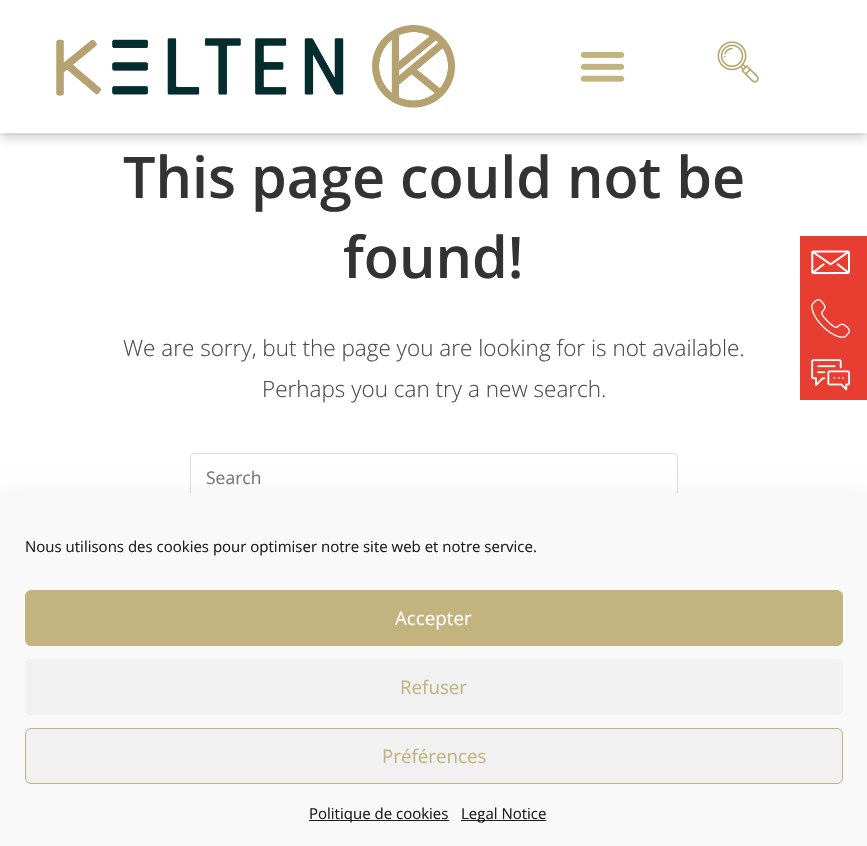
#include "include/core/SkBlurTypes.h"
#include "include/core/SkCanvas.h"
#include "include/core/SkData.h"
#include "include/core/SkFont.h"
#include "include/core/SkFontMgr.h"
#include "include/core/SkImage.h"
#include "include/core/SkMaskFilter.h"
#include "include/core/SkPaint.h"
#include "include/core/SkPathBuilder.h"
#include "include/core/SkTextBlob.h"
#include "include/effects/SkDashPathEffect.h"
#include "include/effects/SkGradientShader.h"
#include "include/utils/SkParsePath.h"

extern sk_sp<SkFontMgr> fontMgr;

void draw(SkCanvas* canvas) {
    SkPaint p;
    p.setAntiAlias(true);
    auto font = [&](const char* family, int weight, float size, bool italic = false) {
        SkFontStyle style(weight, SkFontStyle::kNormal_Width,
            italic ? SkFontStyle::kItalic_Slant : SkFontStyle::kUpright_Slant);
        SkFont result(fontMgr->matchFamilyStyle(family, style), size);
        result.setSubpixel(true);
        return result;
    };
    auto drawPhoto = [&](const char* path, float l, float t, float r, float b) {
        auto image = SkImages::DeferredFromEncodedData(SkData::MakeFromFileName(path));
        canvas->drawImageRect(image, SkRect::MakeLTRB(l, t, r, b), SkSamplingOptions());
    };
    canvas->clear(0xFFFFFFFF);
    p.setColor(0xFFF1F1F1);
    canvas->drawRect(SkRect::MakeLTRB(0, 134, 867, 135), p);
    p.setColor(0x2E000000);
    p.setMaskFilter(SkMaskFilter::MakeBlur(kNormal_SkBlurStyle, 5));
    canvas->drawRect(SkRect::MakeLTRB(1, 8, 866, 138), p);
    p.setMaskFilter(nullptr);
    p.setColor(0xFFFFFFFF);
    canvas->drawRect(SkRect::MakeLTRB(0, 0, 867, 133), p);
    drawPhoto("media/1.png", 56, 25, 455, 108);
    drawPhoto("media/2.png", 580, 52, 625, 82);
    drawPhoto("media/3.png", 717, 41, 759, 83);
    p.setColor(0xFFE83E31);
    canvas->drawRect(SkRect::MakeLTRB(800, 236, 867, 400), p);
    drawPhoto("media/4.png", 811, 250, 850, 275);
    drawPhoto("media/5.png", 811, 299, 850, 338);
    drawPhoto("media/6.png", 811, 359, 850, 391);
    auto font1 = font("Open Sans", 600, 57.5f);
    p.setColor(0xFF333333);
    canvas->drawString("This page could not be", 123, 198, font1, p);
    canvas->drawString("found!", 343, 278, font1, p);
    auto font2 = font("Open Sans", 300, 22.5f);
    p.setColor(0xFF4A4A4A);
    canvas->drawString("We are sorry, but the page you are looking for is not available.", 123, 356, font2, p);
    canvas->drawString("Perhaps you can try a new search.", 262, 397, font2, p);
    p.setStyle(SkPaint::kStroke_Style);
    p.setStrokeWidth(1);
    p.setColor(0xFFDDDDDD);
    canvas->drawRoundRect(SkRect::MakeLTRB(190.5f, 453.5f, 677.5f, 502.5f), 3.5f, 3.5f, p);
    auto font3 = font("Open Sans", 400, 17.5f);
    p.setStyle(SkPaint::kFill_Style);
    p.setColor(0xFF757575);
    canvas->drawString("Search", 206, 484, font3, p);
    p.setColor(0x30000000);
    p.setMaskFilter(SkMaskFilter::MakeBlur(kNormal_SkBlurStyle, 12.5f));
    canvas->drawRect(SkRect::MakeLTRB(0, 505, 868, 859), p);
    p.setMaskFilter(nullptr);
    p.setColor(0xFFF9F9F9);
    canvas->drawRect(SkRect::MakeLTRB(0, 493, 867, 846), p);
    auto font4 = font("Open Sans", 400, 15);
    p.setColor(0xFF191E23);
    canvas->drawString("Nous utilisons des cookies pour optimiser notre site web et notre service.", 25, 552, font4, p);
    p.setColor(0xFFC3B37F);
    canvas->drawRoundRect(SkRect::MakeLTRB(25.5f, 590.5f, 842.5f, 645.5f), 5.5f, 5.5f, p);
    p.setStyle(SkPaint::kStroke_Style);
    canvas->drawRoundRect(SkRect::MakeLTRB(25.5f, 590.5f, 842.5f, 645.5f), 5.5f, 5.5f, p);
    auto font5 = font("Open Sans", 400, 18.75f);
    p.setStyle(SkPaint::kFill_Style);
    p.setColor(0xFFFFFFFF);
    canvas->drawString("Accepter", 395, 625, font5, p);
    p.setColor(0xFFF1F1F1);
    canvas->drawRoundRect(SkRect::MakeLTRB(25, 659, 843, 715), 6, 6, p);
    p.setColor(0xFFC3B37F);
    canvas->drawString("Refuser", 400, 694, font5, p);
    p.setColor(0xFFF1F1F1);
    canvas->drawRoundRect(SkRect::MakeLTRB(25.5f, 728.5f, 842.5f, 783.5f), 5.5f, 5.5f, p);
    p.setStyle(SkPaint::kStroke_Style);
    p.setColor(0xFFC3B37F);
    canvas->drawRoundRect(SkRect::MakeLTRB(25.5f, 728.5f, 842.5f, 783.5f), 5.5f, 5.5f, p);
    p.setStyle(SkPaint::kFill_Style);
    canvas->drawString("Préférences", 382, 763, font5, p);
    p.setColor(0xFF191E23);
    canvas->drawRect(SkRect::MakeLTRB(309, 820, 449, 821), p);
    canvas->drawString("Politique de cookies", 309, 819, font4, p);
    canvas->drawRect(SkRect::MakeLTRB(461, 820, 546, 821), p);
    canvas->drawString("Legal Notice", 461, 819, font4, p);
}
